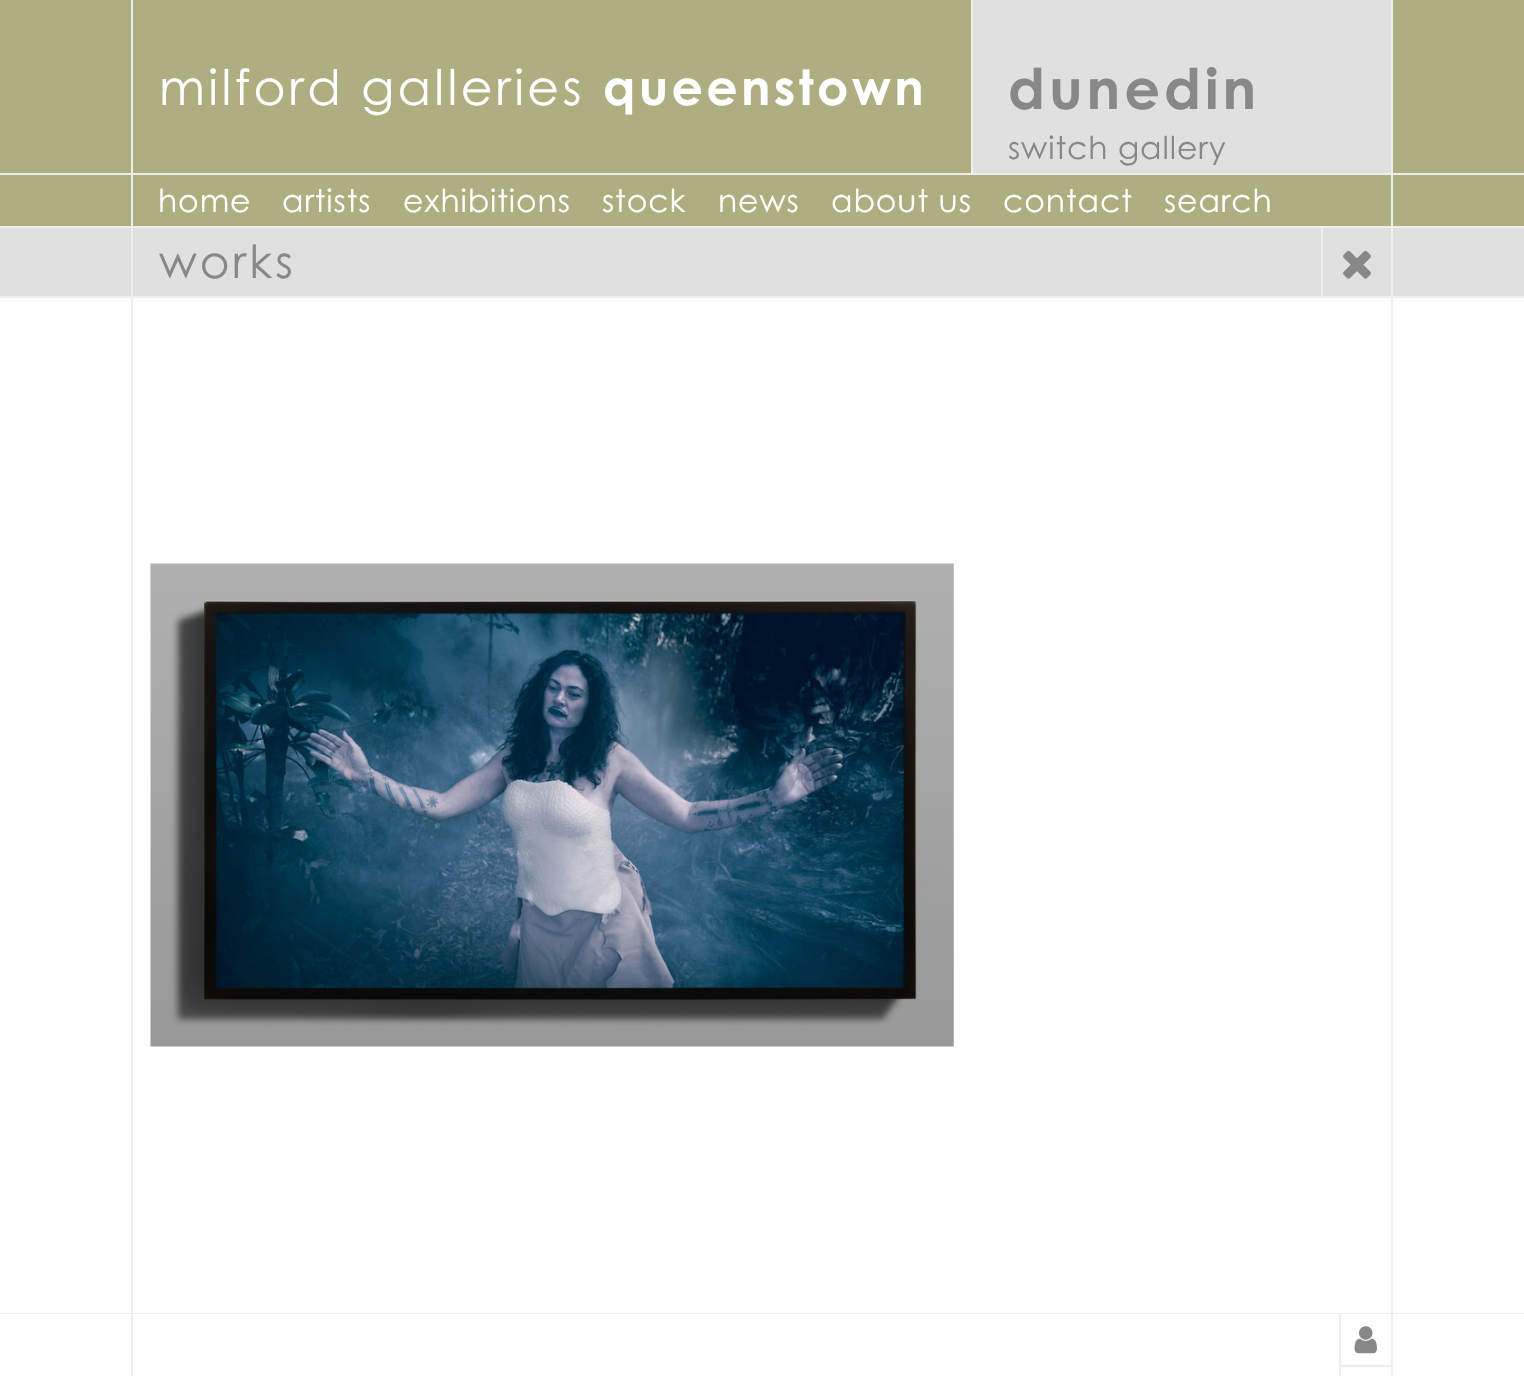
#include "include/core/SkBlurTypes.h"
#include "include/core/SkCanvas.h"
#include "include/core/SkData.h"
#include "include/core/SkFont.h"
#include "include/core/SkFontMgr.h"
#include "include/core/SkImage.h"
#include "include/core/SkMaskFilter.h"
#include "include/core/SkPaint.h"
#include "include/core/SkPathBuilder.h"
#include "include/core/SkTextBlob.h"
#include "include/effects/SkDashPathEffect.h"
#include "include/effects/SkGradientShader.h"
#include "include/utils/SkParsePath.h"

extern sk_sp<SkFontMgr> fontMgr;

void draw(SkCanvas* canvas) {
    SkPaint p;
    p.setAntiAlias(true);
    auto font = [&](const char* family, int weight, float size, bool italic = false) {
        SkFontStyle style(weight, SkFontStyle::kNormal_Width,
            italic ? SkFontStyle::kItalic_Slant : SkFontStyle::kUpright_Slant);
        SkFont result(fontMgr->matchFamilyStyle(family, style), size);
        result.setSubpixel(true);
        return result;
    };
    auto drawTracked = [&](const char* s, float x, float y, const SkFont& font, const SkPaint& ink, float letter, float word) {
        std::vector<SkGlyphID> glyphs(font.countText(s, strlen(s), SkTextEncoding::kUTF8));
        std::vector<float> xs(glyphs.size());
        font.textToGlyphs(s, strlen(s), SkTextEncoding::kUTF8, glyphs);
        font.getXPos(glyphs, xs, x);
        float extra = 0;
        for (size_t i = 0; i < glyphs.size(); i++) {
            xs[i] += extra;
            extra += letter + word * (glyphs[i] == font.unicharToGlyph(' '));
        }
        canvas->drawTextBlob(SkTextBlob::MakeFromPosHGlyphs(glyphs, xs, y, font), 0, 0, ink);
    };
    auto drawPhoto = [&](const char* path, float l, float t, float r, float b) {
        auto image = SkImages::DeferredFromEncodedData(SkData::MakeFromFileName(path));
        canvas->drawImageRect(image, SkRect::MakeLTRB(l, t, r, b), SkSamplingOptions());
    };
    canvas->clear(0xFFE0E0E0);
    {
        const struct { float l, t, r, b; SkColor color; } items[] = {
            {0, 0, 1524, 173, 0xFFAEAE80},
            {0, 173, 1524, 175, 0xFFEEEEEE},
            {1391, 0, 1393, 173, 0xFFEEEEEE},
            {131, 0, 133, 173, 0xFFEEEEEE},
        };
        for (auto [l, t, r, b, color] : items) {
            p.setColor(color);
            canvas->drawRect(SkRect::MakeLTRB(l, t, r, b), p);
        }
    }
    auto font1 = font("Century Gothic", 400, 49);
    p.setColor(0xFFFFFFFF);
    drawTracked("milford galleries", 159, 105, font1, p, 3.4f, 0);
    auto font2 = font("Century Gothic", 700, 49);
    drawTracked("queenstown", 603, 105, font2, p, 3.4f, 0);
    p.setColor(0xFFE0E0E0);
    canvas->drawRect(SkRect::MakeLTRB(973, 0, 1391, 173), p);
    p.setColor(0xFFEEEEEE);
    canvas->drawRect(SkRect::MakeLTRB(971, 0, 973, 173), p);
    auto font3 = font("Century Gothic", 700, 56);
    p.setColor(0xFF888888);
    drawTracked("dunedin", 1008, 109, font3, p, 4, 0);
    {
        const struct { float l, t, r, b; SkColor color; } items[] = {
            {0, 175, 1524, 226, 0xFFAEAE80},
            {0, 226, 1524, 228, 0xFFEEEEEE},
            {1391, 175, 1393, 226, 0xFFEEEEEE},
            {131, 175, 133, 226, 0xFFEEEEEE},
        };
        for (auto [l, t, r, b, color] : items) {
            p.setColor(color);
            canvas->drawRect(SkRect::MakeLTRB(l, t, r, b), p);
        }
    }
    auto font4 = font("Century Gothic", 400, 31.5f);
    p.setColor(0xFF888888);
    drawTracked("switch gallery", 1008, 159, font4, p, 0.9f, 0);
    p.setColor(0xFFFFFFFF);
    {
        const struct { const char* s; float x, y; } items[] = {
            {"home", 158, 212},
            {"artists", 282, 212},
            {"exhibitions", 403, 212},
            {"stock", 602, 212},
            {"news", 718, 212},
            {"about us", 831, 212},
            {"contact", 1003, 212},
            {"search", 1164, 212},
        };
        for (auto [s, x, y] : items) {
            drawTracked(s, x, y, font4, p, 0.9f, 0);
        }
    }
    {
        const struct { float l, t, r, b; SkColor color; } items[] = {
            {0, 296, 1524, 298, 0xFFEEEEEE},
            {1391, 228, 1393, 296, 0xFFEEEEEE},
            {131, 228, 133, 296, 0xFFEEEEEE},
        };
        for (auto [l, t, r, b, color] : items) {
            p.setColor(color);
            canvas->drawRect(SkRect::MakeLTRB(l, t, r, b), p);
        }
    }
    auto font5 = font("Century Gothic", 400, 45.5f);
    p.setColor(0xFF888888);
    drawTracked("works", 159, 278, font5, p, 3, 0);
    p.setColor(0xFFEEEEEE);
    canvas->drawRect(SkRect::MakeLTRB(1321, 228, 1323, 296), p);
    drawPhoto("media/1.png", 1343, 250, 1371, 279);
    {
        const struct { float l, t, r, b; SkColor color; } items[] = {
            {0, 298, 1524, 1313, 0xFFFFFFFF},
            {0, 1313, 1524, 1314, 0xFFEEEEEE},
            {1391, 298, 1393, 1313, 0xFFEEEEEE},
            {131, 298, 133, 1313, 0xFFEEEEEE},
        };
        for (auto [l, t, r, b, color] : items) {
            p.setColor(color);
            canvas->drawRect(SkRect::MakeLTRB(l, t, r, b), p);
        }
    }
    drawPhoto("media/2.png", 150, 563, 954, 1047);
    {
        const struct { float l, t, r, b; SkColor color; } items[] = {
            {0, 1314, 1524, 1376, 0xFFFFFFFF},
            {1391, 1314, 1393, 1376, 0xFFEEEEEE},
            {131, 1314, 133, 1376, 0xFFEEEEEE},
            {1339, 1365, 1391, 1367, 0xFFEEEEEE},
            {1339, 1314, 1341, 1376, 0xFFEEEEEE},
        };
        for (auto [l, t, r, b, color] : items) {
            p.setColor(color);
            canvas->drawRect(SkRect::MakeLTRB(l, t, r, b), p);
        }
    }
    drawPhoto("media/3.png", 1354, 1326, 1377, 1354);
}
